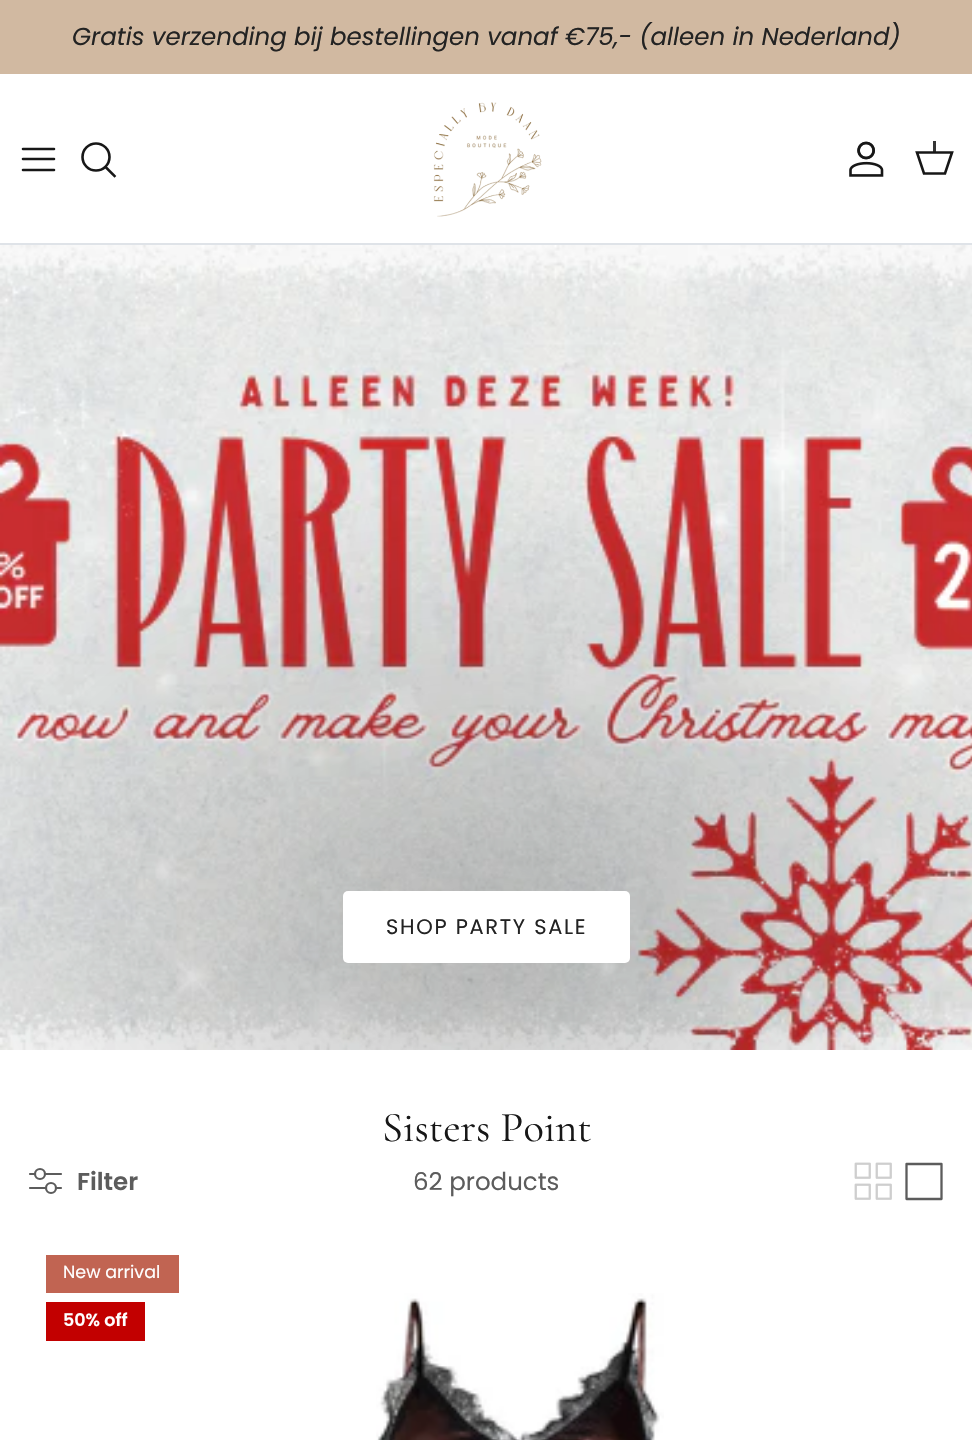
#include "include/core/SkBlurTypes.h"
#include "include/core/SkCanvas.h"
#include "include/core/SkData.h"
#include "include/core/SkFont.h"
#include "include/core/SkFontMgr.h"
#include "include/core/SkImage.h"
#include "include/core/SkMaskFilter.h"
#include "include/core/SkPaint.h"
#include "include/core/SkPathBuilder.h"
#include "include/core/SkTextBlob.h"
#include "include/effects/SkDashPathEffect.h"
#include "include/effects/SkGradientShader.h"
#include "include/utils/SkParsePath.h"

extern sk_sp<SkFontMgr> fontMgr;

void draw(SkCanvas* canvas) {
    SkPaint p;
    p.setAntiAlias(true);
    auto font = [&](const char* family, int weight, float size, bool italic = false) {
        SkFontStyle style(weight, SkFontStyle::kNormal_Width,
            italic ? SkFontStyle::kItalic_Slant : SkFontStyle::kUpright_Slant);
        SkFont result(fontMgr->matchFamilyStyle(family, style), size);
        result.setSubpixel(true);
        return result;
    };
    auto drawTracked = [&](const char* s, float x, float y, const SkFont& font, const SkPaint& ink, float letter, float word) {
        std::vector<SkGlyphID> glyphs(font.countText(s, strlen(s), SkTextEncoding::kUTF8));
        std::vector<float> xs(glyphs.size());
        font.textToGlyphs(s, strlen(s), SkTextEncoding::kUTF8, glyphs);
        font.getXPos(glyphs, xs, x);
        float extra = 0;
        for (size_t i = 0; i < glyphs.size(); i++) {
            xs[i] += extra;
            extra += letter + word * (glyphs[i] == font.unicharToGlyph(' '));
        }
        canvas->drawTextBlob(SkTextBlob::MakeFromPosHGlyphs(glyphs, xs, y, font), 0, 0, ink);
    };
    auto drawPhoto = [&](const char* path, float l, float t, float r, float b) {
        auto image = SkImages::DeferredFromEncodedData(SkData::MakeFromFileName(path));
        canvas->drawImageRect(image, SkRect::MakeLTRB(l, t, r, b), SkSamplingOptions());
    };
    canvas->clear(0xFFFFFFFF);
    p.setColor(0xFFD1B9A1);
    canvas->drawRect(SkRect::MakeLTRB(0, 0, 972, 74), p);
    auto font1 = font("Poppins", 400, 24.5f, true);
    p.setColor(0xFF232323);
    canvas->drawString("Gratis verzending bij bestellingen vanaf €75,- (alleen in Nederland)", 72, 45, font1, p);
    p.setColor(0xFFDFE3E8);
    canvas->drawRect(SkRect::MakeLTRB(0, 243, 972, 245), p);
    p.setStyle(SkPaint::kStroke_Style);
    p.setStrokeWidth(2.6f);
    p.setStrokeCap(SkPaint::kRound_Cap);
    p.setStrokeJoin(SkPaint::kRound_Join);
    p.setColor(0xFF171717);
    canvas->drawPath(SkPathBuilder().moveTo(23, 159).lineTo(54, 159).moveTo(23, 149).lineTo(54, 149).moveTo(23, 170).lineTo(54, 170).detach(), p);
    p.setStrokeCap(SkPaint::kButt_Cap);
    p.setStrokeJoin(SkPaint::kMiter_Join);
    canvas->drawCircle(96, 157, 13.5f, p);
    p.setStrokeCap(SkPaint::kSquare_Cap);
    canvas->drawPath(SkPathBuilder().moveTo(106.5f, 168).lineTo(114.5f, 176).detach(), p);
    drawPhoto("media/1.png", 433, 102, 542, 217);
    drawPhoto("media/2.png", 849, 141, 884, 177);
    p.setStrokeCap(SkPaint::kButt_Cap);
    canvas->drawPath(SkPathBuilder().moveTo(917, 152.5f).lineTo(952, 152.5f).lineTo(945, 173.5f).lineTo(924, 173.5f).close().detach(), p);
    p.setStyle(SkPaint::kFill_Style);
    p.setColor(0xDE171717);
    canvas->drawRect(SkRect::MakeLTRB(933, 141, 936, 153), p);
    drawPhoto("media/3.png", 0, 245, 972, 1050);
    p.setColor(0xFFFFFFFF);
    canvas->drawRoundRect(SkRect::MakeLTRB(343, 891, 630, 963), 5, 5, p);
    auto font2 = font("Poppins", 400, 21);
    p.setColor(0xFF232323);
    drawTracked("SHOP PARTY SALE", 386, 934, font2, p, 1.7f, 0);
    auto font3 = font("Cormorant", 400, 42.5f);
    p.setColor(0xFF171717);
    canvas->drawString("Sisters Point", 382, 1141, font3, p);
    p.setStyle(SkPaint::kStroke_Style);
    p.setStrokeWidth(2.2f);
    p.setStrokeCap(SkPaint::kRound_Cap);
    p.setStrokeJoin(SkPaint::kRound_Join);
    p.setColor(0xFF5C5C5C);
    canvas->drawPath(SkPathBuilder().moveTo(30, 1174).lineTo(61, 1174).moveTo(30, 1188).lineTo(61, 1188).detach(), p);
    p.setStyle(SkPaint::kFill_Style);
    p.setColor(0xFFFFFFFF);
    canvas->drawCircle(40, 1174, 5, p);
    p.setStyle(SkPaint::kStroke_Style);
    p.setStrokeCap(SkPaint::kButt_Cap);
    p.setStrokeJoin(SkPaint::kMiter_Join);
    p.setColor(0xFF5C5C5C);
    canvas->drawCircle(40, 1174, 5, p);
    p.setStyle(SkPaint::kFill_Style);
    p.setColor(0xFFFFFFFF);
    canvas->drawCircle(51, 1188, 5, p);
    p.setStyle(SkPaint::kStroke_Style);
    p.setColor(0xFF5C5C5C);
    canvas->drawCircle(51, 1188, 5, p);
    auto font4 = font("Poppins", 600, 24.5f);
    p.setStyle(SkPaint::kFill_Style);
    canvas->drawString("Filter", 77, 1190, font4, p);
    auto font5 = font("Poppins", 400, 24.5f);
    canvas->drawString("62 products", 413, 1190, font5, p);
    drawPhoto("media/4.png", 854, 1162, 892, 1200);
    p.setStyle(SkPaint::kStroke_Style);
    p.setStrokeWidth(2.3f);
    p.setStrokeCap(SkPaint::kRound_Cap);
    p.setStrokeJoin(SkPaint::kRound_Join);
    canvas->drawPath(SkPathBuilder().moveTo(906.5f, 1164).lineTo(941.5f, 1164).lineTo(941.5f, 1199).lineTo(906.5f, 1199).lineTo(906.5f, 1164).detach(), p);
    p.setStyle(SkPaint::kFill_Style);
    p.setColor(0xFFC16452);
    canvas->drawRect(SkRect::MakeLTRB(46, 1255, 179, 1293), p);
    auto font6 = font("Poppins", 400, 17.5f);
    p.setColor(0xFFFFFFFF);
    canvas->drawString("New arrival", 63, 1278, font6, p);
    p.setColor(0xFFC20000);
    canvas->drawRect(SkRect::MakeLTRB(46, 1302, 145, 1341), p);
    auto font7 = font("Poppins", 600, 17.5f);
    p.setColor(0xFFFFFFFF);
    canvas->drawString("50% off", 63, 1326, font7, p);
    drawPhoto("media/5.png", 376, 1293, 664, 1440);
}
